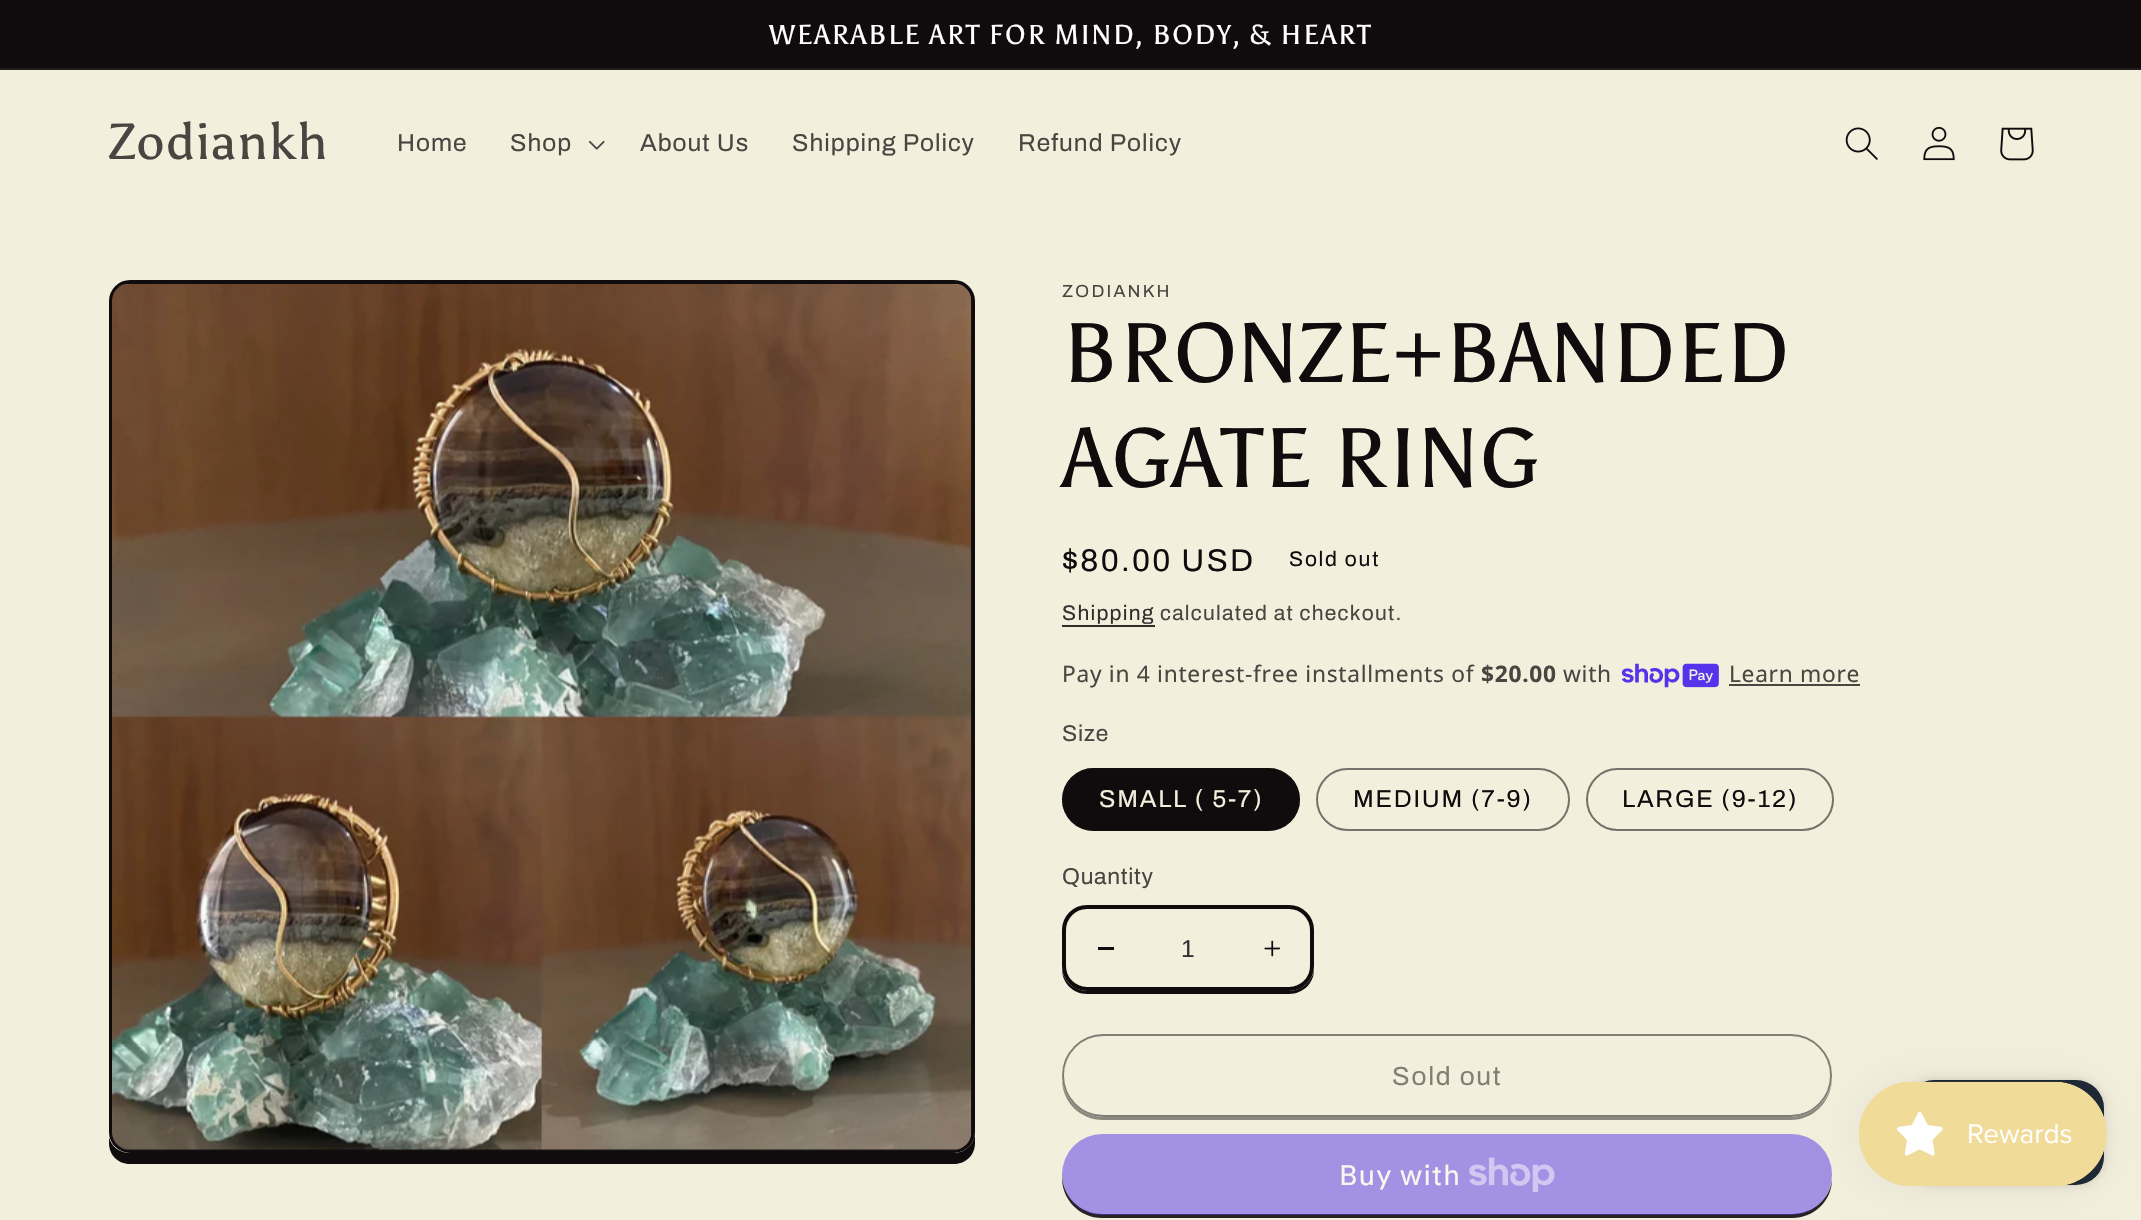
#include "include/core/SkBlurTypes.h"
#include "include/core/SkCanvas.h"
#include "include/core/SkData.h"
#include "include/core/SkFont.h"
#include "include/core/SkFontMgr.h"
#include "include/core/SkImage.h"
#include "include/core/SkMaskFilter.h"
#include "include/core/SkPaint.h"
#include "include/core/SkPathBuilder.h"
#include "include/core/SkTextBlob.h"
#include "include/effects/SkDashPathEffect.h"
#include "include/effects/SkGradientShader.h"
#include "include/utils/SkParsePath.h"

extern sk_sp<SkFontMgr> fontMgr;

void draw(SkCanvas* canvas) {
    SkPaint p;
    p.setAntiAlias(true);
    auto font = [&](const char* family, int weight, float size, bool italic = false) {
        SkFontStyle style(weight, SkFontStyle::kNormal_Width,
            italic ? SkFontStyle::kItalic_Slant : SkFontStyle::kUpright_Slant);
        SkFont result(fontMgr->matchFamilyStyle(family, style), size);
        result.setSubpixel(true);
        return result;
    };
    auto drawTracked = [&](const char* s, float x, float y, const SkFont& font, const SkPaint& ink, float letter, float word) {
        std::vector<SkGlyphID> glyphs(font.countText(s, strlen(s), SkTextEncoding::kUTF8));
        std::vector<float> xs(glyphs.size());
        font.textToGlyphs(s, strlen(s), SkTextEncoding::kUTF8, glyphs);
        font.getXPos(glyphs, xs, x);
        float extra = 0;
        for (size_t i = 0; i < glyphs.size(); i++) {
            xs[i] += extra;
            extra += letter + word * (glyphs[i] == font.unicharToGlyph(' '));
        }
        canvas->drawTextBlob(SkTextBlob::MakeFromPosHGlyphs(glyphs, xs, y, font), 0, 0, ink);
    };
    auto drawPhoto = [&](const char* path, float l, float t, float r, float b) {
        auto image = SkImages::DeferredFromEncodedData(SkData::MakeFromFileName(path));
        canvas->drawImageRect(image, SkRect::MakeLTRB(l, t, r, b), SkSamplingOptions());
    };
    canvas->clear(0xFFF2EFDD);
    p.setColor(0xFF100C0D);
    canvas->drawRect(SkRect::MakeLTRB(0, 0, 2141, 68), p);
    p.setColor(0xFF231F20);
    canvas->drawRect(SkRect::MakeLTRB(0, 68, 2141, 70), p);
    auto font1 = font("Asul", 400, 27.3f);
    p.setColor(0xFFFFFFFF);
    drawTracked("WEARABLE ART FOR MIND, BODY, & HEART", 769, 44, font1, p, 1.75f, 0);
    auto font2 = font("Asul", 400, 50.5f);
    p.setColor(0xFF494541);
    drawTracked("Zodiankh", 109, 159, font2, p, 1.25f, 0);
    auto font3 = font("Archivo", 400, 24.5f);
    drawTracked("Home", 397, 151, font3, p, 1, 0);
    drawTracked("Shop", 510, 151, font3, p, 1, 0);
    drawPhoto("media/1.png", 588, 140, 605, 150);
    {
        const struct { const char* s; float x, y; } items[] = {
            {"About Us", 640, 151},
            {"Shipping Policy", 792, 151},
            {"Refund Policy", 1018, 151},
        };
        for (auto [s, x, y] : items) {
            drawTracked(s, x, y, font3, p, 1, 0);
        }
    }
    drawPhoto("media/2.png", 1845, 127, 1878, 160);
    drawPhoto("media/3.png", 1923, 126, 1955, 161);
    drawPhoto("media/4.png", 2000, 127, 2034, 161);
    p.setColor(0xFF100C0D);
    canvas->drawPath(SkPathBuilder().moveTo(109, 1137).lineTo(109, 1143).cubicTo(109, 1155, 118, 1164, 130, 1164).lineTo(954, 1164).cubicTo(966, 1164, 975, 1155, 975, 1143).lineTo(975, 309).lineTo(975, 1132).cubicTo(975, 1144, 965, 1153, 954, 1153).lineTo(130, 1153).cubicTo(119, 1153, 111, 1146, 109, 1137).close().detach(), p);
    p.setStyle(SkPaint::kStroke_Style);
    p.setStrokeWidth(4);
    canvas->drawRoundRect(SkRect::MakeLTRB(111, 282, 973, 1151), 19, 19, p);
    drawPhoto("media/5.png", 112, 284, 972, 1151);
    auto font4 = font("Archivo", 400, 17.5f);
    p.setStyle(SkPaint::kFill_Style);
    p.setColor(0xFF494541);
    drawTracked("ZODIANKH", 1062, 297, font4, p, 2.25f, 0);
    auto font5 = font("Asul", 400, 84);
    p.setColor(0xFF100C0D);
    drawTracked("BRONZE+BANDED", 1062, 382, font5, p, 1.25f, 0);
    drawTracked("AGATE RING", 1062, 487, font5, p, 1.25f, 0);
    auto font6 = font("Archivo", 400, 31.5f);
    drawTracked("$80.00 USD", 1062, 571, font6, p, 2.25f, 0);
    auto font7 = font("Archivo", 400, 21);
    drawTracked("Sold out", 1289, 566, font7, p, 1.75f, 0);
    p.setColor(0xFF322E2C);
    drawTracked("Shipping", 1062, 620, font7, p, 1.25f, 0);
    canvas->drawRect(SkRect::MakeLTRB(1062, 625, 1155, 627), p);
    p.setColor(0xFF494541);
    drawTracked("calculated at checkout.", 1160, 620, font7, p, 1.25f, 0);
    auto font8 = font("Noto Sans", 400, 22.75f);
    drawTracked("Pay in 4 interest-free installments of", 1062, 682, font8, p, 0.7f, 0);
    auto font9 = font("Noto Sans", 700, 22.75f);
    drawTracked("$20.00", 1481, 682, font9, p, 0.7f, 0);
    drawTracked("with", 1563, 682, font8, p, 0.7f, 0);
    drawPhoto("media/6.png", 1621, 663, 1719, 688);
    drawTracked("Learn more", 1729, 682, font8, p, 0.7f, 0);
    canvas->drawRect(SkRect::MakeLTRB(1729, 684, 1860, 686), p);
    auto font10 = font("Archivo", 400, 22.75f);
    drawTracked("Size", 1062, 741, font10, p, 0.7f, 0);
    p.setColor(0xFF100C0D);
    canvas->drawRoundRect(SkRect::MakeLTRB(1062, 768, 1300, 831), 31.5f, 31.5f, p);
    p.setStyle(SkPaint::kStroke_Style);
    p.setStrokeWidth(2);
    p.setColor(0x8C100C0D);
    canvas->drawRoundRect(SkRect::MakeLTRB(1063, 769, 1299, 830), 30.5f, 30.5f, p);
    p.setStyle(SkPaint::kFill_Style);
    p.setColor(0xFFF2EFDD);
    drawTracked("SMALL ( 5-7)", 1099, 807, font3, p, 1.75f, 0);
    p.setStyle(SkPaint::kStroke_Style);
    p.setColor(0xFF76726B);
    canvas->drawRoundRect(SkRect::MakeLTRB(1317, 769, 1569, 830), 30.5f, 30.5f, p);
    p.setStyle(SkPaint::kFill_Style);
    p.setColor(0xFF100C0D);
    drawTracked("MEDIUM (7-9)", 1353, 807, font3, p, 1.75f, 0);
    p.setStyle(SkPaint::kStroke_Style);
    p.setColor(0xFF76726B);
    canvas->drawRoundRect(SkRect::MakeLTRB(1587, 769, 1833, 830), 30.5f, 30.5f, p);
    p.setStyle(SkPaint::kFill_Style);
    p.setColor(0xFF100C0D);
    drawTracked("LARGE (9-12)", 1622, 807, font3, p, 1.75f, 0);
    p.setColor(0xFF494541);
    drawTracked("Quantity", 1062, 884, font10, p, 0.7f, 0);
    p.setColor(0xFF100C0D);
    canvas->drawPath(SkPathBuilder().moveTo(1062, 929).lineTo(1062, 969).cubicTo(1062, 983, 1073, 994, 1087, 994).lineTo(1289, 994).cubicTo(1303, 994, 1314, 983, 1314, 970).cubicTo(1312, 981, 1302, 990, 1290, 990).lineTo(1087, 990).cubicTo(1073, 990, 1062, 980, 1062, 966).close().detach(), p);
    p.setColor(0xFFF2EFDD);
    canvas->drawRoundRect(SkRect::MakeLTRB(1062, 905, 1314, 991), 25, 25, p);
    p.setColor(0xFF100C0D);
    canvas->drawRect(SkRect::MakeLTRB(1098, 947, 1114, 950), p);
    drawPhoto("media/7.png", 1264, 940, 1281, 957);
    p.setStyle(SkPaint::kStroke_Style);
    p.setStrokeWidth(4);
    canvas->drawRoundRect(SkRect::MakeLTRB(1064, 907, 1312, 989), 23, 23, p);
    auto font11 = font("Liberation Sans", 400, 24.5f);
    p.setStyle(SkPaint::kFill_Style);
    p.setColor(0xFF322E2C);
    canvas->drawString("1", 1181, 957, font11, p);
    p.setColor(0xFF8C897F);
    canvas->drawPath(SkPathBuilder().moveTo(1062, 1074).lineTo(1062, 1079).cubicTo(1062, 1102, 1080, 1120, 1103, 1120).lineTo(1791, 1120).cubicTo(1813, 1120, 1831, 1102, 1832, 1080).cubicTo(1830, 1101, 1812, 1116, 1791, 1116).lineTo(1103, 1116).cubicTo(1081, 1116, 1062, 1098, 1062, 1075).close().detach(), p);
    p.setStyle(SkPaint::kStroke_Style);
    p.setStrokeWidth(2);
    p.setColor(0xFFF2EFDD);
    canvas->drawRoundRect(SkRect::MakeLTRB(1063, 1035, 1831, 1116), 40.5f, 40.5f, p);
    p.setColor(0xFF817E75);
    canvas->drawRoundRect(SkRect::MakeLTRB(1063, 1035, 1831, 1116), 40.5f, 40.5f, p);
    auto font12 = font("Archivo", 400, 26.25f);
    p.setStyle(SkPaint::kFill_Style);
    drawTracked("Sold out", 1392, 1085, font12, p, 1.75f, 0);
    p.setColor(0xFF272322);
    canvas->drawPath(SkPathBuilder().moveTo(1062, 1173).lineTo(1062, 1178).cubicTo(1062, 1200, 1080, 1218, 1102, 1218).lineTo(1792, 1218).cubicTo(1814, 1218, 1832, 1201, 1832, 1179).cubicTo(1830, 1199, 1813, 1214, 1792, 1214).lineTo(1102, 1214).cubicTo(1080, 1214, 1062, 1196, 1062, 1174).close().detach(), p);
    p.setColor(0x805433EB);
    canvas->drawRoundRect(SkRect::MakeLTRB(1062, 1134, 1832, 1215), 40.5f, 40.5f, p);
    auto font13 = font("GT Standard", 400, 28);
    p.setColor(0xFFF9F7EE);
    drawTracked("Buy with", 1339, 1185, font13, p, 1, 0);
    drawPhoto("media/8.png", 1469, 1157, 1555, 1192);
    p.setColor(0x26000000);
    p.setMaskFilter(SkMaskFilter::MakeBlur(kNormal_SkBlurStyle, 4.5f));
    canvas->drawRoundRect(SkRect::MakeLTRB(1906, 1080, 2104, 1185), 28, 28, p);
    p.setMaskFilter(nullptr);
    p.setColor(0xFF202A36);
    canvas->drawRoundRect(SkRect::MakeLTRB(1906, 1080, 2104, 1185), 28, 28, p);
    p.setColor(0x0D000000);
    p.setMaskFilter(SkMaskFilter::MakeBlur(kNormal_SkBlurStyle, 22));
    canvas->drawRoundRect(SkRect::MakeLTRB(1859, 1082, 2107, 1187), 52.5f, 52.5f, p);
    p.setMaskFilter(nullptr);
    drawPhoto("media/9.png", 1859, 1081, 2107, 1187);
}
